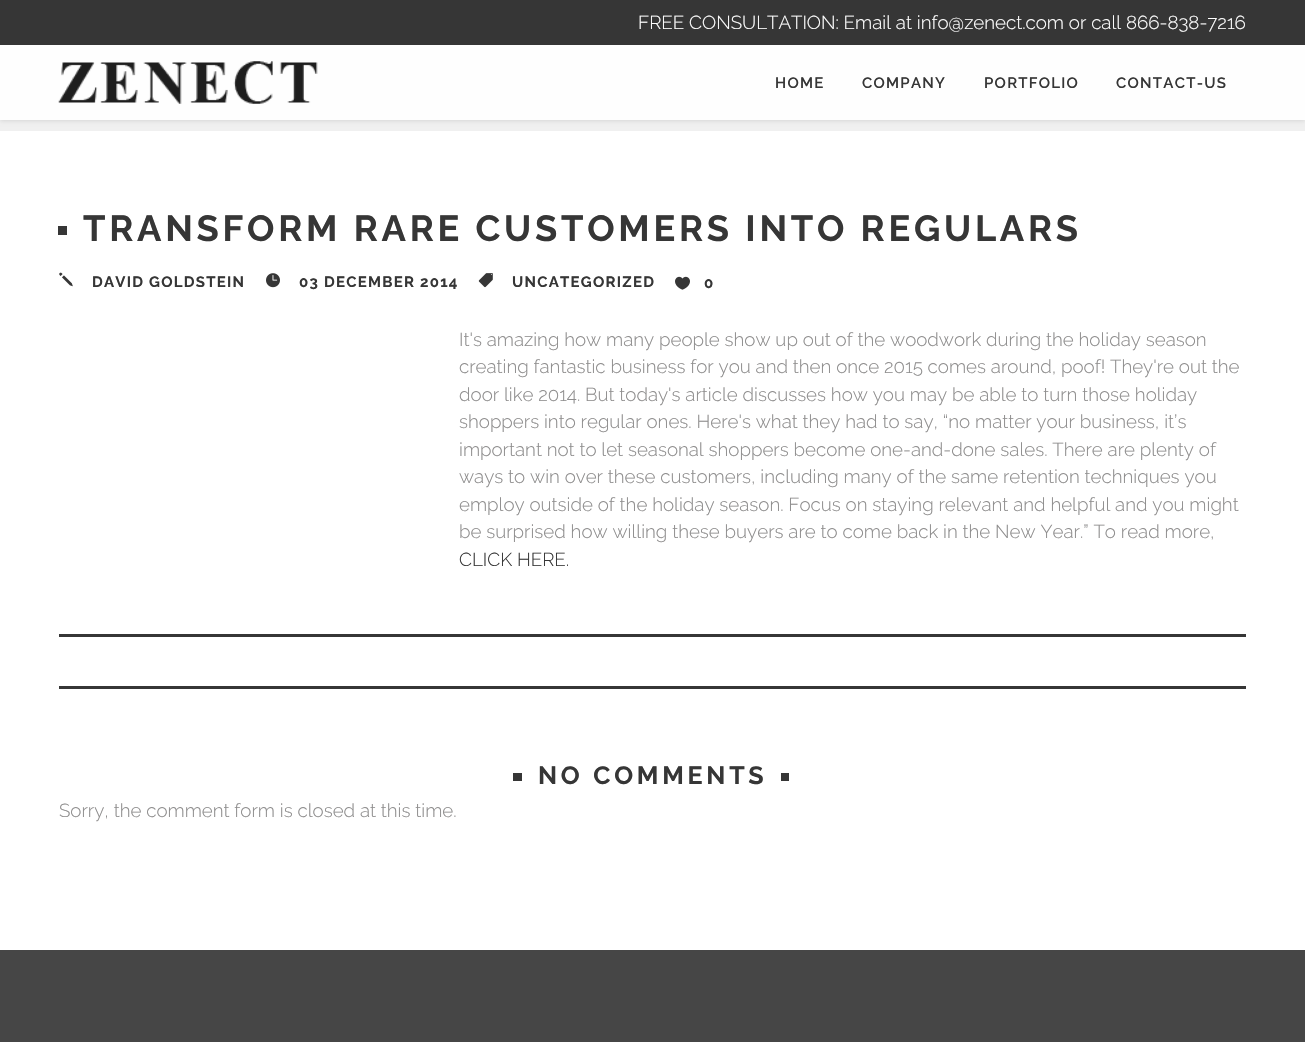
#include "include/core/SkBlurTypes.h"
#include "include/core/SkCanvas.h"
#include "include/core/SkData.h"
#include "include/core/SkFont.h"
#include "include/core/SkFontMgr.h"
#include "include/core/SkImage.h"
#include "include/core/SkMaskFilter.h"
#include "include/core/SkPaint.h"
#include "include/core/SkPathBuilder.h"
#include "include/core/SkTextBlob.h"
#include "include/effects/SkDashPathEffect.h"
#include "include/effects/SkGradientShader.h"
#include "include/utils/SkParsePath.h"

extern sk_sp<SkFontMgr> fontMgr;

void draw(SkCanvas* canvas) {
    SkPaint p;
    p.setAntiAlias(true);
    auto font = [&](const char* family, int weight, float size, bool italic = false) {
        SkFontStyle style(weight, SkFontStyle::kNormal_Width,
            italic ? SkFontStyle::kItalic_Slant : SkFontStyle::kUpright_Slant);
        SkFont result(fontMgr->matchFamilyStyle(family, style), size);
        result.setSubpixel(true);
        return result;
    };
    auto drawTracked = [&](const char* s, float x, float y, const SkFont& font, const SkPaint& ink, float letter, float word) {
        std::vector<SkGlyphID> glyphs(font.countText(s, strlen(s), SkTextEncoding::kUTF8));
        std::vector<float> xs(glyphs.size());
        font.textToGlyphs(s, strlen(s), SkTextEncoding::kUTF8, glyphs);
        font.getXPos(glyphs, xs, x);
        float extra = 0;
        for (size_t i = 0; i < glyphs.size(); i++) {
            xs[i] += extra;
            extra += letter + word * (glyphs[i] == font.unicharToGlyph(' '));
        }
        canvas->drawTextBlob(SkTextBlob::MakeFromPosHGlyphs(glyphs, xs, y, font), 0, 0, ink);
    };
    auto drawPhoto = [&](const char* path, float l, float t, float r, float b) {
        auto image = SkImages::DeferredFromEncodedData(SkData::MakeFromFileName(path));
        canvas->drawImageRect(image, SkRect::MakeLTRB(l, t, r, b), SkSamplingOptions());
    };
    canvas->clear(0xFF464646);
    p.setColor(0xFFF0F0F0);
    canvas->drawRect(SkRect::MakeLTRB(0, 120, 1305, 131), p);
    p.setColor(0x1C000000);
    p.setMaskFilter(SkMaskFilter::MakeBlur(kNormal_SkBlurStyle, 2));
    canvas->drawRect(SkRect::MakeLTRB(0, 46, 1305, 121), p);
    p.setMaskFilter(nullptr);
    p.setColor(0xFF363636);
    canvas->drawRect(SkRect::MakeLTRB(0, 0, 1305, 45), p);
    auto font1 = font("Raleway", 300, 18.75f);
    p.setColor(0xFFFFFFFF);
    canvas->drawString("FREE CONSULTATION: Email at info@zenect.com or call 866-838-7216", 638, 29, font1, p);
    p.setColor(0xFFFEFEFE);
    canvas->drawRect(SkRect::MakeLTRB(0, 45, 1305, 120), p);
    drawPhoto("media/1.png", 58, 61, 318, 104);
    auto font2 = font("Raleway", 600, 15);
    p.setColor(0xFF363636);
    {
        const struct { const char* s; float x, y; } items[] = {
            {"HOME", 775, 88},
            {"COMPANY", 862, 88},
            {"PORTFOLIO", 984, 88},
            {"CONTACT-US", 1116, 88},
        };
        for (auto [s, x, y] : items) {
            drawTracked(s, x, y, font2, p, 1.25f, 0);
        }
    }
    p.setColor(0xFFFFFFFF);
    canvas->drawRect(SkRect::MakeLTRB(0, 131, 1305, 950), p);
    p.setColor(0xFF363636);
    canvas->drawRect(SkRect::MakeLTRB(58, 226, 67, 235), p);
    auto font3 = font("Raleway", 700, 36.25f);
    drawTracked("TRANSFORM RARE CUSTOMERS INTO REGULARS", 83, 241, font3, p, 3.75f, 0);
    drawPhoto("media/2.png", 59, 272, 73, 287);
    auto font4 = font("Raleway", 700, 15);
    drawTracked("DAVID GOLDSTEIN", 92, 287, font4, p, 1.25f, 0);
    drawPhoto("media/3.png", 266, 273, 280, 288);
    drawTracked("03 DECEMBER 2014", 299, 287, font4, p, 1.25f, 0);
    drawPhoto("media/4.png", 478, 273, 493, 288);
    drawTracked("UNCATEGORIZED", 512, 287, font4, p, 1.25f, 0);
    drawPhoto("media/5.png", 675, 276, 690, 290);
    drawTracked("0", 704, 288, font4, p, 1.25f, 0);
    p.setColor(0xFF8E8D8D);
    {
        const struct { const char* s; float x, y; } items[] = {
            {"It's amazing how many people show up out of the woodwork during the holiday season", 459, 346},
            {"creating fantastic business for you and then once 2015 comes around, poof! They're out the", 459, 373},
            {"door like 2014. But today's article discusses how you may be able to turn those holiday", 459, 401},
            {"shoppers into regular ones. Here's what they had to say, “no matter your business, it’s", 459, 428},
            {"important not to let seasonal shoppers become one-and-done sales. There are plenty of", 459, 456},
            {"ways to win over these customers, including many of the same retention techniques you", 459, 483},
            {"employ outside of the holiday season. Focus on staying relevant and helpful and you might", 459, 511},
            {"be surprised how willing these buyers are to come back in the New Year.” To read more,", 459, 538},
        };
        for (auto [s, x, y] : items) {
            canvas->drawString(s, x, y, font1, p);
        }
    }
    p.setColor(0xFF363636);
    canvas->drawString("CLICK HERE.", 459, 566, font1, p);
    {
        const struct { float l, t, r, b; SkColor color; } items[] = {
            {59, 634, 1246, 637, 0xFF363636},
            {59, 686, 1246, 689, 0xFF363636},
            {513, 773, 522, 781, 0xFF363636},
        };
        for (auto [l, t, r, b, color] : items) {
            p.setColor(color);
            canvas->drawRect(SkRect::MakeLTRB(l, t, r, b), p);
        }
    }
    auto font5 = font("Raleway", 700, 25);
    drawTracked("NO COMMENTS", 538, 784, font5, p, 3.75f, 0);
    canvas->drawRect(SkRect::MakeLTRB(781, 773, 789, 781), p);
    p.setColor(0xFF8E8D8D);
    canvas->drawString("Sorry, the comment form is closed at this time.", 59, 817, font1, p);
}
